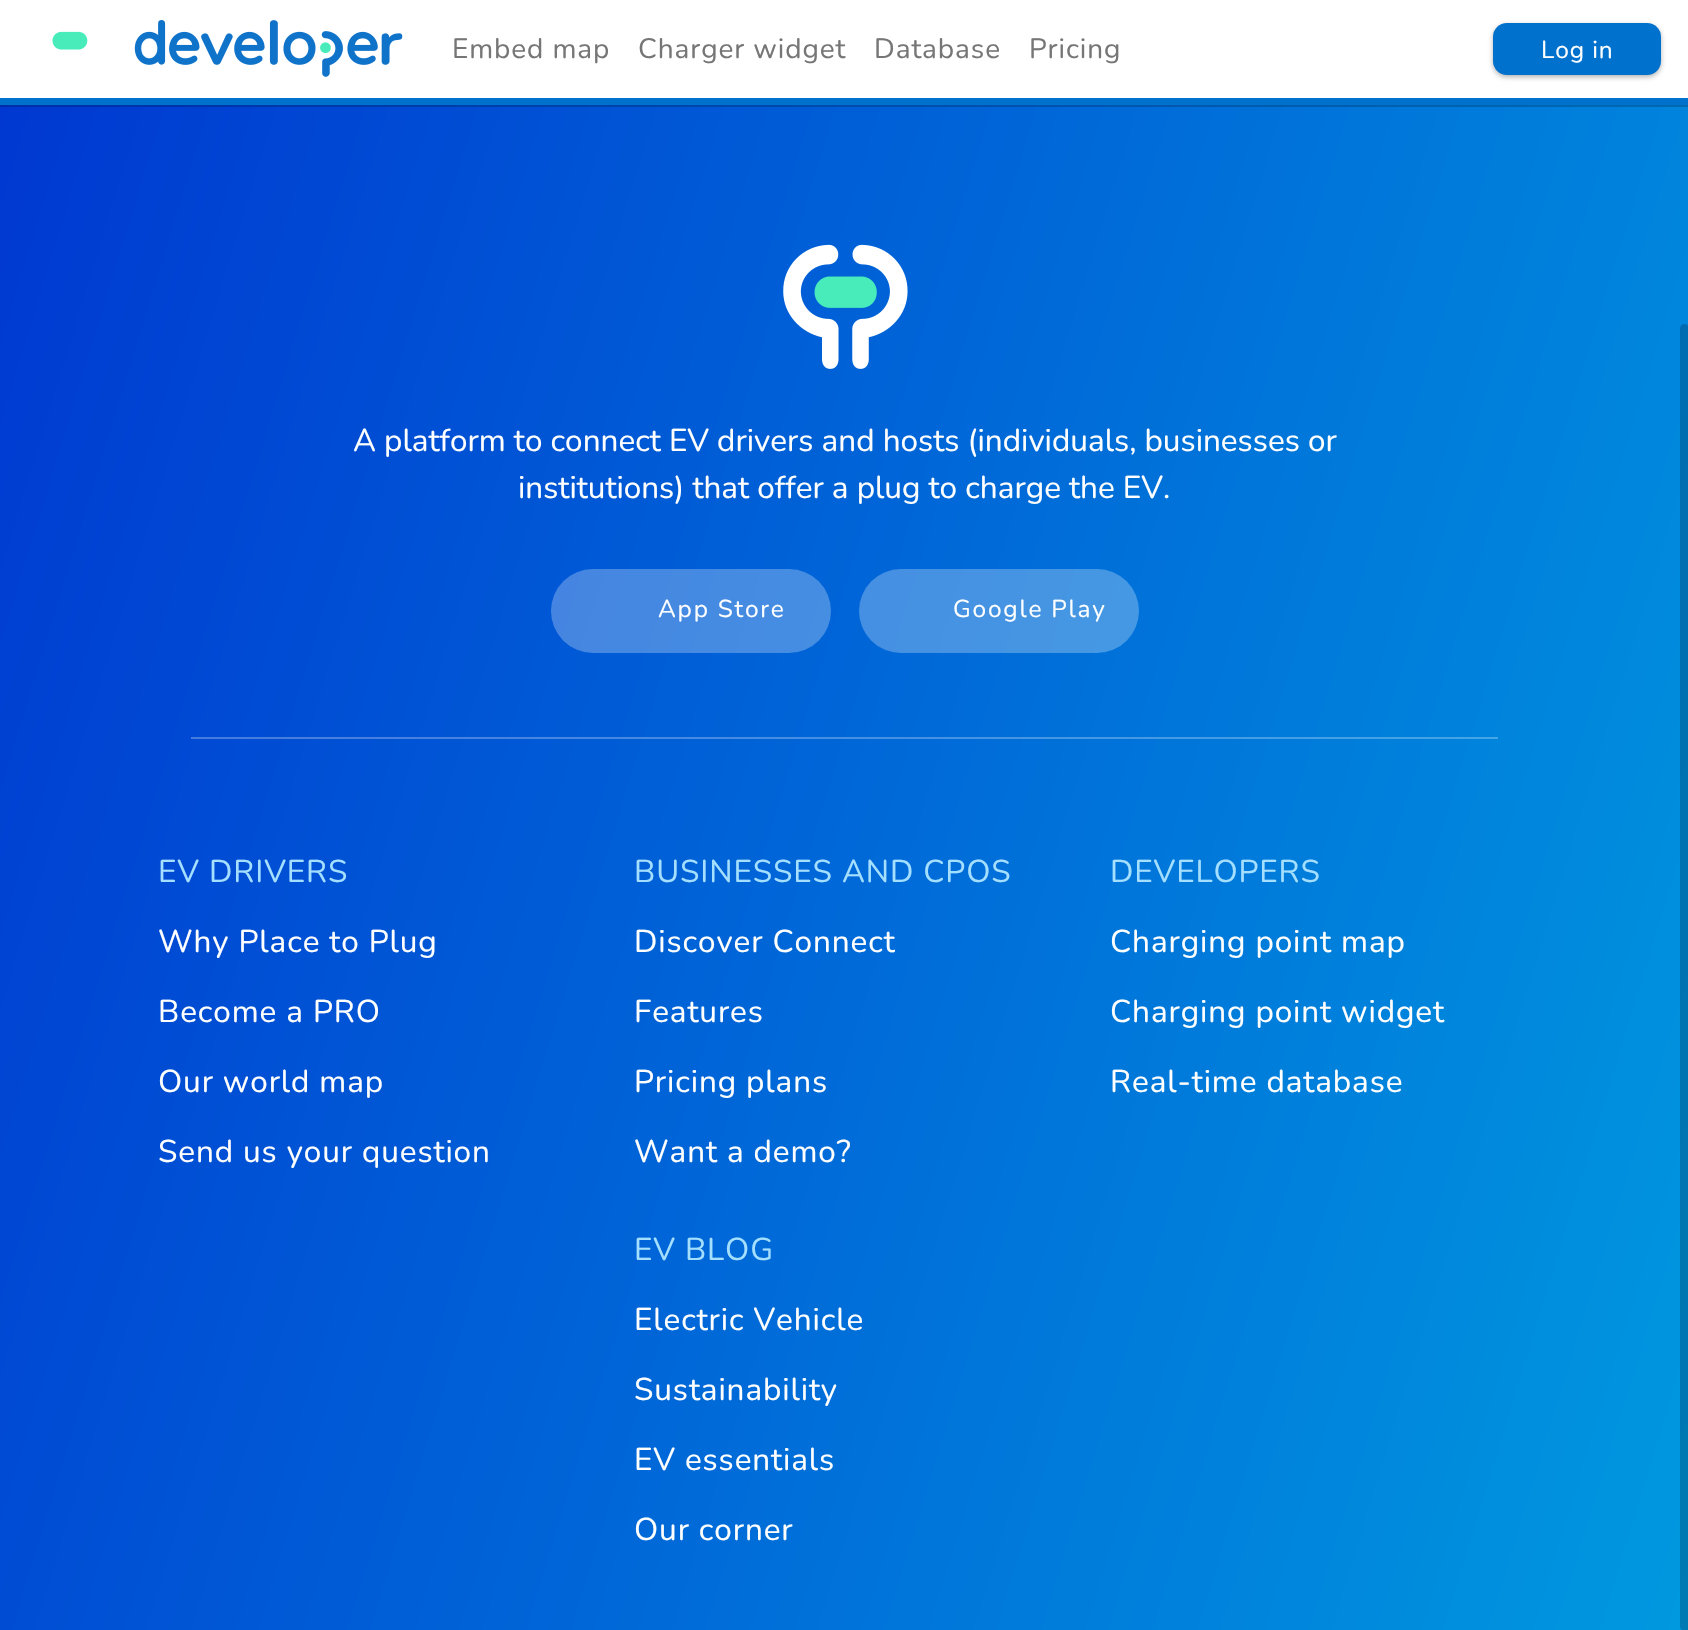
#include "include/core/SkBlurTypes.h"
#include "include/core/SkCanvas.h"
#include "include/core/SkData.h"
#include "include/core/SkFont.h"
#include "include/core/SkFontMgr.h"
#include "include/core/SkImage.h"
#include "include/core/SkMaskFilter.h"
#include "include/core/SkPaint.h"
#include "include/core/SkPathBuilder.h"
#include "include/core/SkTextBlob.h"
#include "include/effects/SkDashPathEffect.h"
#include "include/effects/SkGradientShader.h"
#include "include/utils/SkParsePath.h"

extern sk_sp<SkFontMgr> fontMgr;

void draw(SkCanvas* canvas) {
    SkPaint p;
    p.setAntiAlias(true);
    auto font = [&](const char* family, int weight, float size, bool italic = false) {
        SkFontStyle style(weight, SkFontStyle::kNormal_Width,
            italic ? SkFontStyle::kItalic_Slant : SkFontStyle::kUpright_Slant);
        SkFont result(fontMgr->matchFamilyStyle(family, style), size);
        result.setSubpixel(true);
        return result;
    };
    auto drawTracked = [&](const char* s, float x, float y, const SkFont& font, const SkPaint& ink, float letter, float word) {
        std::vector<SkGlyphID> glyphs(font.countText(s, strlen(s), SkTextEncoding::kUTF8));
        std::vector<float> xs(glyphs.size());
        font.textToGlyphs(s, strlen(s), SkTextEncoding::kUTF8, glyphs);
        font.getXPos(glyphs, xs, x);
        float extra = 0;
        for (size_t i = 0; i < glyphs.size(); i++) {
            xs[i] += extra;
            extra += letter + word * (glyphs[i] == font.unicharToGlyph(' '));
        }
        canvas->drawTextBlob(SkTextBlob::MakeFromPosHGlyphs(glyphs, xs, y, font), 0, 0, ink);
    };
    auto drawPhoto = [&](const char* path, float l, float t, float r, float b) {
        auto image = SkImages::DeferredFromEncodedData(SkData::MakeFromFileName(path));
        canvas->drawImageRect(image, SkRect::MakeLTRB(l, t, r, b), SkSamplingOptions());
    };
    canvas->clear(0xFFFFFFFF);
    drawPhoto("media/1.png", 52, 20, 403, 77);
    auto font1 = font("Nunito", 200, 28);
    p.setColor(0xFF767676);
    {
        const struct { const char* s; float x, y; } items[] = {
            {"Embed map", 452, 58},
            {"Charger widget", 638, 58},
            {"Database", 874, 58},
            {"Pricing", 1029, 58},
        };
        for (auto [s, x, y] : items) {
            drawTracked(s, x, y, font1, p, 0.9f, 0);
        }
    }
    p.setColor(0x4D000000);
    p.setMaskFilter(SkMaskFilter::MakeBlur(kNormal_SkBlurStyle, 2.5f));
    canvas->drawRoundRect(SkRect::MakeLTRB(1493, 25, 1661, 77), 14, 14, p);
    p.setMaskFilter(nullptr);
    p.setColor(0xFF0071CD);
    canvas->drawRoundRect(SkRect::MakeLTRB(1493, 23, 1661, 75), 14, 14, p);
    auto font2 = font("Nunito", 200, 24.5f);
    p.setColor(0xFFFFFFFF);
    drawTracked("Log in", 1541, 58, font2, p, 0.9f, 0);
    {
        const SkColor colors[] = {0xFF009EE0, 0xFF0038D1};
        const float stops[] = {0, 1};
        const SkPoint ends[] = {{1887, 1386}, {-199, 748}};
        p.setShader(SkGradientShader::MakeLinear(ends, colors, stops, 2, SkTileMode::kClamp));
        p.setAlpha(255);
    }
    canvas->drawRect(SkRect::MakeLTRB(0, 105, 1688, 1630), p);
    p.setShader(nullptr);
    p.setColor(0x33000000);
    canvas->drawPath(SkPathBuilder().moveTo(0, 105).lineTo(0, 107).lineTo(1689, 107).lineTo(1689, 100).lineTo(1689, 105).close().detach(), p);
    p.setColor(0xFF0071CD);
    canvas->drawRect(SkRect::MakeLTRB(0, 98, 1688, 105), p);
    {
        const SkColor colors[] = {0xFF45B8E8, 0xFF456EDD};
        const float stops[] = {0, 1};
        const SkPoint ends[] = {{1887, 1386}, {-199, 748}};
        p.setShader(SkGradientShader::MakeLinear(ends, colors, stops, 2, SkTileMode::kClamp));
        p.setAlpha(255);
    }
    canvas->drawRect(SkRect::MakeLTRB(191, 737, 1498, 739), p);
    drawPhoto("media/2.png", 783, 244, 908, 369);
    auto font3 = font("Nunito", 200, 31.5f);
    p.setShader(nullptr);
    p.setColor(0xFFFFFFFF);
    canvas->drawString("A platform to connect EV drivers and hosts (individuals, businesses or", 353, 451, font3, p);
    canvas->drawString("institutions) that offer a plug to charge the EV.", 518, 498, font3, p);
    p.setColor(0x45FFFFFF);
    canvas->drawRoundRect(SkRect::MakeLTRB(551, 569, 831, 653), 42, 42, p);
    p.setColor(0xFFFFFFFF);
    drawTracked("App Store", 658, 617, font2, p, 1.75f, 0);
    p.setColor(0x45FFFFFF);
    canvas->drawRoundRect(SkRect::MakeLTRB(859, 569, 1139, 653), 42, 42, p);
    p.setColor(0xFFFFFFFF);
    drawTracked("Google Play", 953, 617, font2, p, 1.75f, 0);
    p.setColor(0xFFA4DFFF);
    drawTracked("EV DRIVERS", 158, 882, font3, p, 0.9f, 0);
    p.setColor(0xFFFFFFFF);
    {
        const struct { const char* s; float x, y; } items[] = {
            {"Why Place to Plug", 158, 952},
            {"Become a PRO", 158, 1022},
            {"Our world map", 158, 1092},
            {"Send us your question", 158, 1162},
        };
        for (auto [s, x, y] : items) {
            drawTracked(s, x, y, font3, p, 0.9f, 0);
        }
    }
    p.setColor(0xFFA4DFFF);
    drawTracked("BUSINESSES AND CPOS", 634, 882, font3, p, 0.9f, 0);
    p.setColor(0xFFFFFFFF);
    {
        const struct { const char* s; float x, y; } items[] = {
            {"Discover Connect", 634, 952},
            {"Features", 634, 1022},
            {"Pricing plans", 634, 1092},
            {"Want a demo?", 634, 1162},
        };
        for (auto [s, x, y] : items) {
            drawTracked(s, x, y, font3, p, 0.9f, 0);
        }
    }
    p.setColor(0xFFA4DFFF);
    drawTracked("DEVELOPERS", 1110, 882, font3, p, 0.9f, 0);
    p.setColor(0xFFFFFFFF);
    {
        const struct { const char* s; float x, y; } items[] = {
            {"Charging point map", 1110, 952},
            {"Charging point widget", 1110, 1022},
            {"Real-time database", 1110, 1092},
        };
        for (auto [s, x, y] : items) {
            drawTracked(s, x, y, font3, p, 0.9f, 0);
        }
    }
    p.setColor(0xFFA4DFFF);
    drawTracked("EV BLOG", 634, 1260, font3, p, 0.9f, 0);
    p.setColor(0xFFFFFFFF);
    {
        const struct { const char* s; float x, y; } items[] = {
            {"Electric Vehicle", 634, 1330},
            {"Sustainability", 634, 1400},
            {"EV essentials", 634, 1470},
            {"Our corner", 634, 1540},
        };
        for (auto [s, x, y] : items) {
            drawTracked(s, x, y, font3, p, 0.9f, 0);
        }
    }
    p.setColor(0x33000000);
    canvas->drawRoundRect(SkRect::MakeLTRB(1680, 324, 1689, 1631), 4.5f, 4.5f, p);
}
